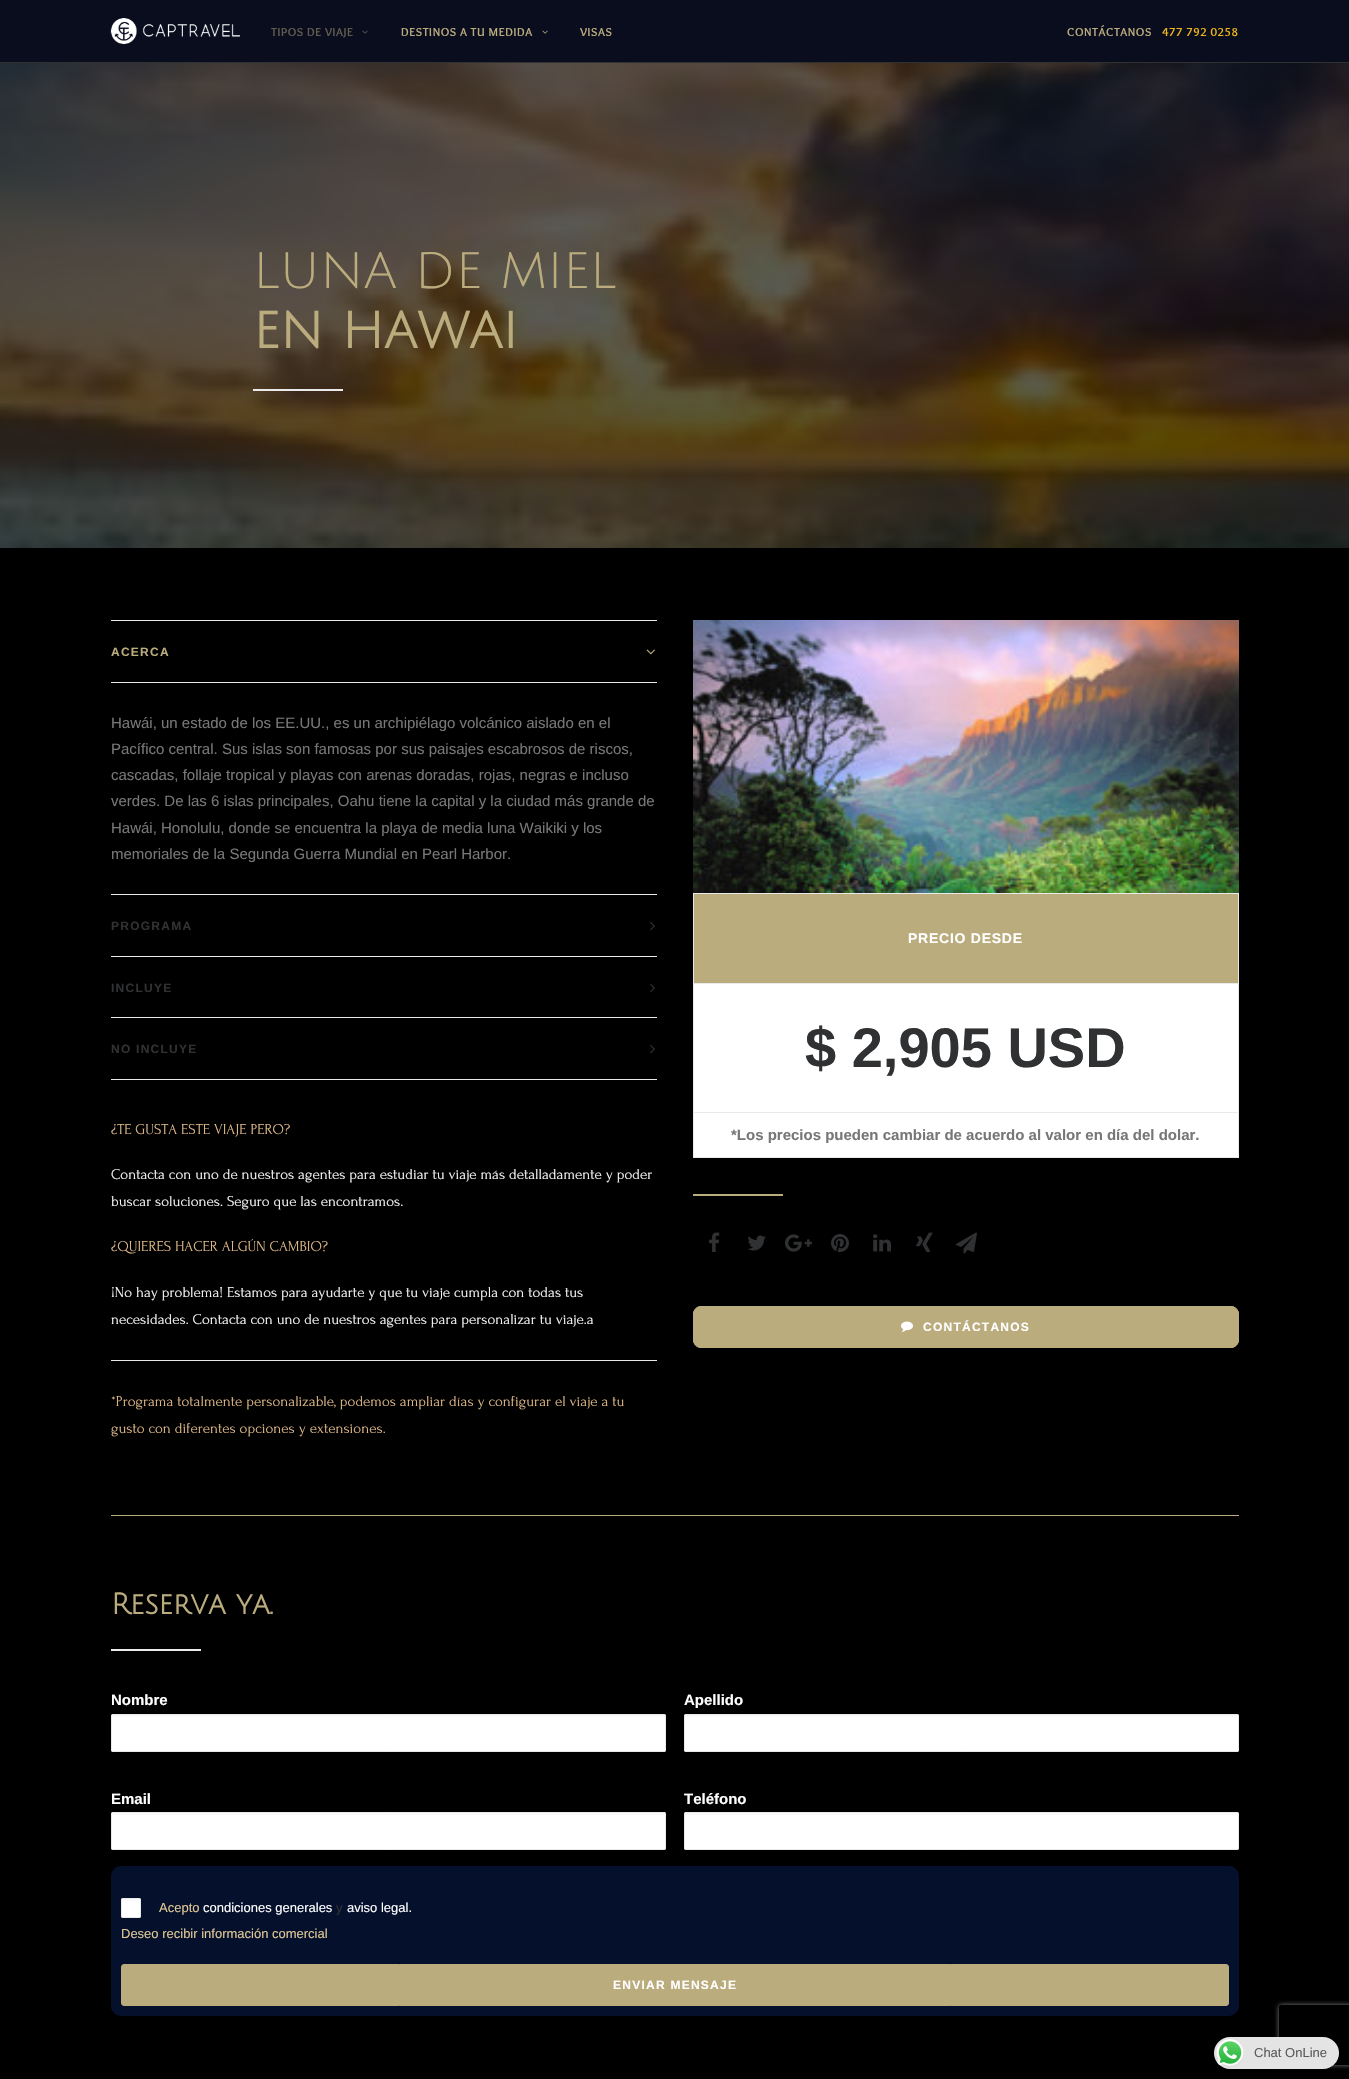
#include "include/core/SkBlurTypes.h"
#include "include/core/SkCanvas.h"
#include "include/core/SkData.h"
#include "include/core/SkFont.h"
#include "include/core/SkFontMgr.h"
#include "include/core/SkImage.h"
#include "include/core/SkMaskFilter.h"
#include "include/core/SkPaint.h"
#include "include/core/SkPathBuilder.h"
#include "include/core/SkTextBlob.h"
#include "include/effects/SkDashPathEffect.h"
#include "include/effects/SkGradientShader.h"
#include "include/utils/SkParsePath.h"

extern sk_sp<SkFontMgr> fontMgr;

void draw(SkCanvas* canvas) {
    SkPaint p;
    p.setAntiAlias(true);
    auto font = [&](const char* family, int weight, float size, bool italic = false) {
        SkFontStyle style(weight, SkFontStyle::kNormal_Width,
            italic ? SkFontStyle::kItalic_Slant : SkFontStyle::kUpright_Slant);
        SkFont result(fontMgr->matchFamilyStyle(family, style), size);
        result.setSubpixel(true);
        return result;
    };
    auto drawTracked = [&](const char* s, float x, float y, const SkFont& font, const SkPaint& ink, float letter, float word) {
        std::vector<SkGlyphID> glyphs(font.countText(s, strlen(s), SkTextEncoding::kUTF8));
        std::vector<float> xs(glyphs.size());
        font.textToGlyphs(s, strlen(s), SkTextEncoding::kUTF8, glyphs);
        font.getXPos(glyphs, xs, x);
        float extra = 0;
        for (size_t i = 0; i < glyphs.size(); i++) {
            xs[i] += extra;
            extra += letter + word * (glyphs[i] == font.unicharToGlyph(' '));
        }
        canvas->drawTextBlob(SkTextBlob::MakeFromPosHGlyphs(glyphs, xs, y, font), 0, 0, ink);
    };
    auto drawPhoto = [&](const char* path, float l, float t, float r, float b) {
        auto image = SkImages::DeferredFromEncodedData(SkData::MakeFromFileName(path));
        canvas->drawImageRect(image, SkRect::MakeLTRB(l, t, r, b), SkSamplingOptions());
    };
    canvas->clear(0xFF000000);
    p.setColor(0xFF090D1E);
    canvas->drawRect(SkRect::MakeLTRB(0, 0, 1349, 62), p);
    p.setColor(0xFF303133);
    canvas->drawRect(SkRect::MakeLTRB(0, 62, 1349, 63), p);
    drawPhoto("media/1.png", 110, 18, 240, 44);
    auto font1 = font("Overlock", 700, 12);
    p.setColor(0xFF625D4E);
    drawTracked("TIPOS DE VIAJE", 271, 36, font1, p, 0.6f, 0);
    drawPhoto("media/2.png", 362, 30, 368, 34);
    p.setColor(0xFFBBAC7E);
    drawTracked("DESTINOS A TU MEDIDA", 401, 36, font1, p, 0.6f, 0);
    drawPhoto("media/3.png", 542, 30, 548, 34);
    drawTracked("VISAS", 580, 36, font1, p, 0.6f, 0);
    drawTracked("CONTÁCTANOS", 1067, 36, font1, p, 0.6f, 0);
    p.setColor(0xFFEEB61C);
    drawTracked("477 792 0258", 1162, 36, font1, p, 0.6f, 0);
    drawPhoto("media/4.png", 0, 63, 1349, 548);
    auto font2 = font("Julius Sans One", 400, 50);
    p.setColor(0xFFBBAC7E);
    canvas->drawString("LUNA DE MIEL", 253, 288, font2, p);
    auto font3 = font("Julius Sans One", 700, 50);
    canvas->drawString("EN HAWAI", 253, 348, font3, p);
    {
        const struct { float l, t, r, b; SkColor color; } items[] = {
            {253, 389, 343, 391, 0xFFEAEAEA},
            {111, 620, 657, 621, 0xFFEAEAEA},
            {111, 894, 657, 895, 0xFFEAEAEA},
        };
        for (auto [l, t, r, b, color] : items) {
            p.setColor(color);
            canvas->drawRect(SkRect::MakeLTRB(l, t, r, b), p);
        }
    }
    auto font4 = font("Liberation Sans", 700, 12);
    p.setColor(0xFFBBAC7E);
    drawTracked("ACERCA", 111, 656, font4, p, 1.25f, 0);
    drawPhoto("media/5.png", 646, 649, 655, 655);
    p.setColor(0xFFEAEAEA);
    canvas->drawRect(SkRect::MakeLTRB(111, 682, 657, 683), p);
    auto font5 = font("Liberation Sans", 400, 15);
    p.setColor(0xFF777777);
    {
        const struct { const char* s; float x, y; } items[] = {
            {"Hawái, un estado de los EE.UU., es un archipiélago volcánico aislado en el", 111, 728},
            {"Pacífico central. Sus islas son famosas por sus paisajes escabrosos de riscos,", 111, 754},
            {"cascadas, follaje tropical y playas con arenas doradas, rojas, negras e incluso", 111, 780},
            {"verdes. De las 6 islas principales, Oahu tiene la capital y la ciudad más grande de", 111, 806},
            {"Hawái, Honolulu, donde se encuentra la playa de media luna Waikiki y los", 111, 833},
            {"memoriales de la Segunda Guerra Mundial en Pearl Harbor.", 111, 859},
        };
        for (auto [s, x, y] : items) {
            canvas->drawString(s, x, y, font5, p);
        }
    }
    p.setColor(0xFFEAEAEA);
    canvas->drawRect(SkRect::MakeLTRB(111, 956, 657, 957), p);
    p.setColor(0xFF303133);
    drawTracked("PROGRAMA", 111, 930, font4, p, 1.25f, 0);
    drawPhoto("media/6.png", 650, 922, 655, 931);
    p.setColor(0xFFEAEAEA);
    canvas->drawRect(SkRect::MakeLTRB(111, 1017, 657, 1018), p);
    p.setColor(0xFF303133);
    drawTracked("INCLUYE", 111, 992, font4, p, 1.25f, 0);
    drawPhoto("media/6.png", 650, 984, 655, 993);
    p.setColor(0xFFEAEAEA);
    canvas->drawRect(SkRect::MakeLTRB(111, 1079, 657, 1080), p);
    p.setColor(0xFF303133);
    drawTracked("NO INCLUYE", 111, 1053, font4, p, 1.25f, 0);
    drawPhoto("media/6.png", 650, 1045, 655, 1054);
    auto font6 = font("Forum", 400, 15);
    p.setColor(0xFFDEB887);
    canvas->drawString("¿TE GUSTA ESTE VIAJE PERO?", 111, 1134, font6, p);
    p.setColor(0xFFF5F5F5);
    canvas->drawString("Contacta con uno de nuestros agentes para estudiar tu viaje más detalladamente y poder", 111, 1179, font6, p);
    canvas->drawString("buscar soluciones. Seguro que las encontramos.", 111, 1206, font6, p);
    p.setColor(0xFFDEB887);
    canvas->drawString("¿QUIERES HACER ALGÚN CAMBIO?", 111, 1251, font6, p);
    p.setColor(0xFFF5F5F5);
    canvas->drawString("¡No hay problema! Estamos para ayudarte y que tu viaje cumpla con todas tus", 111, 1297, font6, p);
    canvas->drawString("necesidades. Contacta con uno de nuestros agentes para personalizar tu viaje.a", 111, 1324, font6, p);
    p.setColor(0xFFEAEAEA);
    canvas->drawRect(SkRect::MakeLTRB(111, 1360, 657, 1361), p);
    p.setColor(0xFFDEB887);
    canvas->drawString("*Programa totalmente personalizable, podemos ampliar días y configurar el viaje a tu", 111, 1406, font6, p);
    canvas->drawString("gusto con diferentes opciones y extensiones.", 111, 1433, font6, p);
    drawPhoto("media/7.png", 693, 620, 1239, 893);
    p.setColor(0xFFFFFFFF);
    canvas->drawRect(SkRect::MakeLTRB(694, 984, 1238, 1157), p);
    p.setStyle(SkPaint::kStroke_Style);
    p.setStrokeWidth(1);
    p.setColor(0xFFEAEAEA);
    canvas->drawRect(SkRect::MakeLTRB(693.5f, 893.5f, 1238.5f, 1157.5f), p);
    p.setStyle(SkPaint::kFill_Style);
    p.setColor(0xFFBBAC7E);
    canvas->drawRect(SkRect::MakeLTRB(694, 894, 1238, 983), p);
    p.setColor(0xFFEAEAEA);
    canvas->drawRect(SkRect::MakeLTRB(694, 983, 1238, 984), p);
    auto font7 = font("Liberation Sans", 700, 14);
    p.setColor(0xFFFFFFFF);
    drawTracked("PRECIO DESDE", 908, 943, font7, p, 0.75f, 0);
    auto font8 = font("Liberation Sans", 700, 56);
    p.setColor(0xFF303133);
    canvas->drawString("$ 2,905 USD", 805, 1067, font8, p);
    p.setColor(0xFFEAEAEA);
    canvas->drawRect(SkRect::MakeLTRB(694, 1112, 1238, 1113), p);
    auto font9 = font("Liberation Sans", 700, 15);
    p.setColor(0xFF777777);
    canvas->drawString("*Los precios pueden cambiar de acuerdo al valor en día del dolar.", 731, 1140, font9, p);
    p.setColor(0xFFBBAC7E);
    canvas->drawRect(SkRect::MakeLTRB(693, 1194, 783, 1196), p);
    drawPhoto("media/8.png", 709, 1232, 720, 1252);
    drawPhoto("media/9.png", 748, 1235, 766, 1251);
    drawPhoto("media/10.png", 785, 1234, 812, 1252);
    drawPhoto("media/11.png", 831, 1234, 849, 1252);
    drawPhoto("media/12.png", 873, 1234, 891, 1252);
    drawPhoto("media/13.png", 916, 1232, 933, 1252);
    drawPhoto("media/14.png", 956, 1232, 977, 1254);
    canvas->drawRoundRect(SkRect::MakeLTRB(693.5f, 1306.5f, 1238.5f, 1347.5f), 7.5f, 7.5f, p);
    p.setStyle(SkPaint::kStroke_Style);
    canvas->drawRoundRect(SkRect::MakeLTRB(693.5f, 1306.5f, 1238.5f, 1347.5f), 7.5f, 7.5f, p);
    drawPhoto("media/15.png", 901, 1321, 913, 1332);
    canvas->drawRoundRect(SkRect::MakeLTRB(693.5f, 1306.5f, 1238.5f, 1347.5f), 7.5f, 7.5f, p);
    p.setStyle(SkPaint::kFill_Style);
    p.setColor(0xFFFFFFFF);
    drawTracked("CONTÁCTANOS", 923, 1331, font4, p, 1.25f, 0);
    p.setColor(0xFFBBAC7E);
    canvas->drawRect(SkRect::MakeLTRB(111, 1515, 1239, 1516), p);
    auto font10 = font("Julius Sans One", 700, 29);
    canvas->drawString("Reserva ya.", 111, 1614, font10, p);
    p.setColor(0xFFEAEAEA);
    canvas->drawRect(SkRect::MakeLTRB(111, 1649, 201, 1651), p);
    p.setColor(0xFFFFFFFF);
    canvas->drawString("Nombre", 111, 1705, font9, p);
    canvas->drawRoundRect(SkRect::MakeLTRB(111, 1714, 666, 1752), 2, 2, p);
    p.setColor(0xFFF9F9F9);
    canvas->drawPath(SkPathBuilder().moveTo(113, 1717).lineTo(665, 1717).cubicTo(665, 1716, 665, 1715, 664, 1715).lineTo(113, 1715).lineTo(112, 1715).lineTo(112, 1718).close().detach(), p);
    p.setStyle(SkPaint::kStroke_Style);
    p.setColor(0xFFEAEAEA);
    canvas->drawRoundRect(SkRect::MakeLTRB(111.5f, 1714.5f, 665.5f, 1751.5f), 1.5f, 1.5f, p);
    p.setStyle(SkPaint::kFill_Style);
    p.setColor(0xFFFFFFFF);
    canvas->drawString("Apellido", 684, 1705, font9, p);
    canvas->drawRoundRect(SkRect::MakeLTRB(684, 1714, 1239, 1752), 2, 2, p);
    p.setColor(0xFFF9F9F9);
    canvas->drawPath(SkPathBuilder().moveTo(686, 1717).lineTo(1238, 1717).cubicTo(1238, 1716, 1238, 1715, 1237, 1715).lineTo(686, 1715).lineTo(685, 1715).lineTo(685, 1718).close().detach(), p);
    p.setStyle(SkPaint::kStroke_Style);
    p.setColor(0xFFEAEAEA);
    canvas->drawRoundRect(SkRect::MakeLTRB(684.5f, 1714.5f, 1238.5f, 1751.5f), 1.5f, 1.5f, p);
    p.setStyle(SkPaint::kFill_Style);
    p.setColor(0xFFFFFFFF);
    canvas->drawString("Email", 111, 1804, font9, p);
    canvas->drawRoundRect(SkRect::MakeLTRB(111, 1812, 666, 1850), 2, 2, p);
    p.setColor(0xFFF9F9F9);
    canvas->drawPath(SkPathBuilder().moveTo(113, 1815).lineTo(665, 1815).cubicTo(665, 1814, 665, 1813, 664, 1813).lineTo(113, 1813).lineTo(112, 1813).lineTo(112, 1816).close().detach(), p);
    p.setStyle(SkPaint::kStroke_Style);
    p.setColor(0xFFEAEAEA);
    canvas->drawRoundRect(SkRect::MakeLTRB(111.5f, 1812.5f, 665.5f, 1849.5f), 1.5f, 1.5f, p);
    p.setStyle(SkPaint::kFill_Style);
    p.setColor(0xFFFFFFFF);
    canvas->drawString("Teléfono", 684, 1804, font9, p);
    canvas->drawRoundRect(SkRect::MakeLTRB(684, 1812, 1239, 1850), 2, 2, p);
    p.setColor(0xFFF9F9F9);
    canvas->drawPath(SkPathBuilder().moveTo(686, 1815).lineTo(1238, 1815).cubicTo(1238, 1814, 1238, 1813, 1237, 1813).lineTo(686, 1813).lineTo(685, 1813).lineTo(685, 1816).close().detach(), p);
    p.setStyle(SkPaint::kStroke_Style);
    p.setColor(0xFFEAEAEA);
    canvas->drawRoundRect(SkRect::MakeLTRB(684.5f, 1812.5f, 1238.5f, 1849.5f), 1.5f, 1.5f, p);
    p.setStyle(SkPaint::kFill_Style);
    p.setColor(0xFF05102C);
    canvas->drawRoundRect(SkRect::MakeLTRB(111, 1866, 1239, 2016), 10, 10, p);
    p.setColor(0xFFFFFFFF);
    canvas->drawRoundRect(SkRect::MakeLTRB(121, 1898, 141, 1918), 2, 2, p);
    p.setColor(0xFFF9F9F9);
    canvas->drawPath(SkPathBuilder().moveTo(123, 1901).cubicTo(126, 1901, 139, 1900, 140, 1901).cubicTo(140, 1898.5f, 139, 1899, 136.5f, 1899).lineTo(125.5f, 1899).cubicTo(121.5f, 1899, 122, 1898.5f, 122, 1902.5f).cubicTo(122, 1901.5f, 122.5f, 1901, 123, 1901).close().detach(), p);
    p.setStyle(SkPaint::kStroke_Style);
    p.setColor(0xFFEAEAEA);
    canvas->drawRoundRect(SkRect::MakeLTRB(121.5f, 1898.5f, 140.5f, 1917.5f), 1.5f, 1.5f, p);
    auto font11 = font("Liberation Sans", 400, 13);
    p.setStyle(SkPaint::kFill_Style);
    p.setColor(0xFFDEC796);
    canvas->drawString("Acepto", 159, 1912, font11, p);
    p.setColor(0xFFFFFFFF);
    canvas->drawString("condiciones generales", 203, 1912, font11, p);
    p.setColor(0xFF303133);
    canvas->drawString("y", 336, 1912, font11, p);
    p.setColor(0xFFFFFFFF);
    canvas->drawString("aviso legal.", 347, 1912, font11, p);
    p.setColor(0xFFDEC796);
    canvas->drawString("Deseo recibir información comercial", 121, 1938, font11, p);
    p.setColor(0xFFBBAC7E);
    canvas->drawRoundRect(SkRect::MakeLTRB(121.5f, 1964.5f, 1228.5f, 2005.5f), 2.5f, 2.5f, p);
    p.setStyle(SkPaint::kStroke_Style);
    canvas->drawRoundRect(SkRect::MakeLTRB(121.5f, 1964.5f, 1228.5f, 2005.5f), 2.5f, 2.5f, p);
    p.setStyle(SkPaint::kFill_Style);
    p.setColor(0xFFFFFFFF);
    drawTracked("ENVIAR MENSAJE", 613, 1989, font4, p, 1.25f, 0);
    canvas->save();
    canvas->clipPath(SkPathBuilder(SkPathFillType::kEvenOdd).moveTo(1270, 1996).lineTo(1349, 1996).lineTo(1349, 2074).lineTo(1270, 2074).close().moveTo(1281, 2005).lineTo(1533, 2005).cubicTo(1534, 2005, 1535, 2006, 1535, 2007).lineTo(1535, 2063).cubicTo(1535, 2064, 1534, 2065, 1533, 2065).lineTo(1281, 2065).cubicTo(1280, 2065, 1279, 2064, 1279, 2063).lineTo(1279, 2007).cubicTo(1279, 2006, 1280, 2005, 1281, 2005).close().detach(), true);
    p.setColor(0xFF808080);
    p.setMaskFilter(SkMaskFilter::MakeBlur(kNormal_SkBlurStyle, 2.5f));
    canvas->drawRoundRect(SkRect::MakeLTRB(1279, 2005, 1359, 2065), 2, 2, p);
    p.setMaskFilter(nullptr);
    canvas->restore();
    p.setColor(0xFFE4E4E4);
    canvas->drawRoundRect(SkRect::MakeLTRB(1214, 2037, 1339, 2069), 16, 16, p);
    drawPhoto("media/16.png", 1216, 2039, 1244, 2067);
    p.setColor(0xFF5B5B5B);
    canvas->drawString("Chat OnLine", 1254, 2057, font11, p);
}
